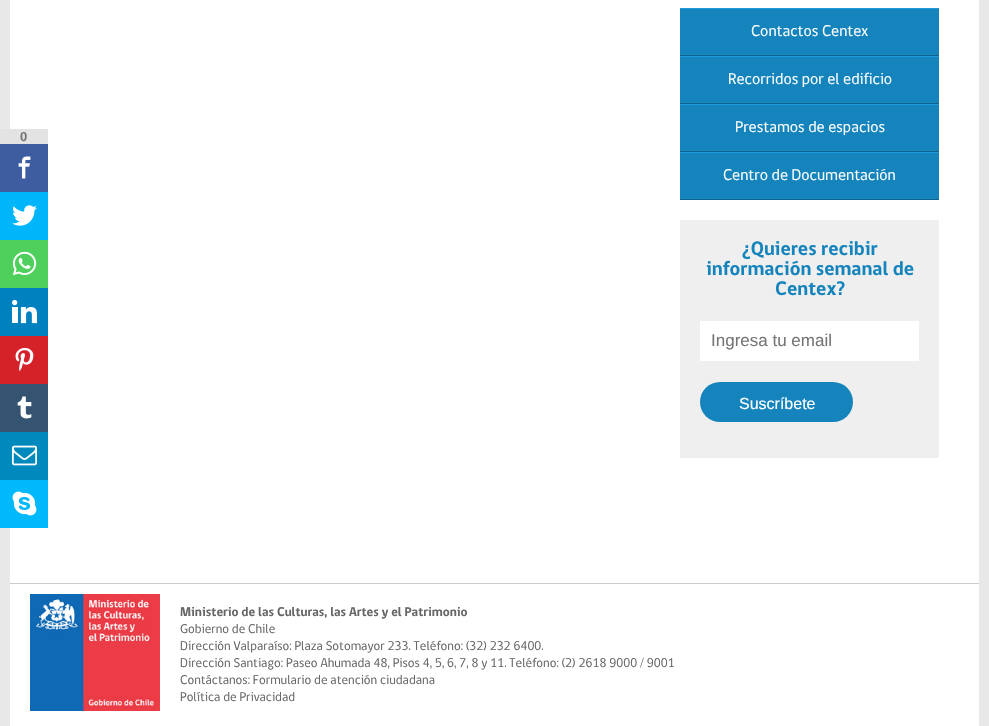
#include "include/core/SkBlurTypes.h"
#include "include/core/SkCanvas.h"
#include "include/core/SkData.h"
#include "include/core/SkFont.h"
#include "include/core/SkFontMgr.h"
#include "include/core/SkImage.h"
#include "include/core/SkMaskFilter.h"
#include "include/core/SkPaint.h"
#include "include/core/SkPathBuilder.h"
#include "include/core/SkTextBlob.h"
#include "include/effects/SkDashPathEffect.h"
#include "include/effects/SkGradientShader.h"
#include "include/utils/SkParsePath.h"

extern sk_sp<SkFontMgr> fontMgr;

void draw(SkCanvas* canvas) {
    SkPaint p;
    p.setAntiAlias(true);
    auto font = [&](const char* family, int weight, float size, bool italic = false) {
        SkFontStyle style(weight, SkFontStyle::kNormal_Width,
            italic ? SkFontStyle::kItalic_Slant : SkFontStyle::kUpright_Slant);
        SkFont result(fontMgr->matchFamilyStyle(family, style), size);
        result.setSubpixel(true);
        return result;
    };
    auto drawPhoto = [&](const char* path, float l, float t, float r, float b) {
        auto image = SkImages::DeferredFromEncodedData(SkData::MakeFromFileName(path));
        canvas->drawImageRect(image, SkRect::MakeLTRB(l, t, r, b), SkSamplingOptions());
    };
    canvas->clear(0xFFE8E8E8);
    p.setColor(0xFFFFFFFF);
    canvas->drawRect(SkRect::MakeLTRB(10, 0, 979, 726), p);
    p.setColor(0xFFE3E3E3);
    canvas->drawRect(SkRect::MakeLTRB(0, 129, 48, 144), p);
    auto font1 = font("Liberation Sans", 700, 13);
    p.setColor(0xFF757575);
    canvas->drawString("0", 20, 141, font1, p);
    p.setColor(0xFF3E5DA0);
    canvas->drawRect(SkRect::MakeLTRB(0, 144, 48, 192), p);
    drawPhoto("media/1.png", 18, 156, 31, 179);
    p.setColor(0xFF00B5F9);
    canvas->drawRect(SkRect::MakeLTRB(0, 192, 48, 240), p);
    drawPhoto("media/2.png", 12, 205, 37, 226);
    p.setColor(0xFF4FCF5B);
    canvas->drawRect(SkRect::MakeLTRB(0, 240, 48, 288), p);
    drawPhoto("media/3.png", 12, 251, 37, 276);
    p.setColor(0xFF0081BF);
    canvas->drawRect(SkRect::MakeLTRB(0, 288, 48, 336), p);
    drawPhoto("media/4.png", 12, 299, 37, 324);
    p.setColor(0xFFD52229);
    canvas->drawRect(SkRect::MakeLTRB(0, 336, 48, 384), p);
    drawPhoto("media/5.png", 15, 347, 34, 371);
    p.setColor(0xFF355472);
    canvas->drawRect(SkRect::MakeLTRB(0, 384, 48, 432), p);
    drawPhoto("media/6.png", 17, 396, 32, 419);
    p.setColor(0xFF0089BC);
    canvas->drawRect(SkRect::MakeLTRB(0, 432, 48, 480), p);
    drawPhoto("media/7.png", 12, 445, 37, 466);
    p.setColor(0xFF00B8FC);
    canvas->drawRect(SkRect::MakeLTRB(0, 480, 48, 528), p);
    drawPhoto("media/8.png", 12, 491, 37, 516);
    {
        const struct { float l, t, r, b; SkColor color; } items[] = {
            {680, 9, 939, 199, 0xFF1584BD},
            {680, 8, 939, 9, 0xFF1A9ADC},
            {680, 55, 939, 56, 0xFF0E638E},
        };
        for (auto [l, t, r, b, color] : items) {
            p.setColor(color);
            canvas->drawRect(SkRect::MakeLTRB(l, t, r, b), p);
        }
    }
    auto font2 = font("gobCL", 400, 16);
    p.setColor(0xFFFFFFFF);
    canvas->drawString("Contactos Centex", 751, 36, font2, p);
    p.setColor(0xFF1A9ADC);
    canvas->drawRect(SkRect::MakeLTRB(680, 56, 939, 57), p);
    p.setColor(0xFF0E638E);
    canvas->drawRect(SkRect::MakeLTRB(680, 103, 939, 104), p);
    p.setColor(0xFFFFFFFF);
    canvas->drawString("Recorridos por el edificio", 728, 84, font2, p);
    p.setColor(0xFF1A9ADC);
    canvas->drawRect(SkRect::MakeLTRB(680, 104, 939, 105), p);
    p.setColor(0xFF0E638E);
    canvas->drawRect(SkRect::MakeLTRB(680, 151, 939, 152), p);
    p.setColor(0xFFFFFFFF);
    canvas->drawString("Prestamos de espacios", 735, 132, font2, p);
    p.setColor(0xFF1A9ADC);
    canvas->drawRect(SkRect::MakeLTRB(680, 152, 939, 153), p);
    p.setColor(0xFF0E638E);
    canvas->drawRect(SkRect::MakeLTRB(680, 199, 939, 200), p);
    p.setColor(0xFFFFFFFF);
    canvas->drawString("Centro de Documentación", 723, 180, font2, p);
    p.setColor(0xFFEFEFEF);
    canvas->drawRect(SkRect::MakeLTRB(680, 220, 939, 458), p);
    auto font3 = font("gobCL", 700, 20);
    p.setColor(0xFF1584BD);
    {
        const struct { const char* s; float x, y; } items[] = {
            {"¿Quieres recibir", 742, 255},
            {"información semanal de", 706, 275},
            {"Centex?", 775, 295},
        };
        for (auto [s, x, y] : items) {
            canvas->drawString(s, x, y, font3, p);
        }
    }
    p.setColor(0xFFFFFFFF);
    canvas->drawRect(SkRect::MakeLTRB(700, 321, 919, 361), p);
    auto font4 = font("Liberation Sans", 400, 17);
    p.setColor(0xFF757575);
    canvas->drawString("Ingresa tu email", 711, 346, font4, p);
    p.setColor(0xFF1584BD);
    canvas->drawRoundRect(SkRect::MakeLTRB(700, 382, 853, 422), 20, 20, p);
    auto font5 = font("Liberation Sans", 400, 16);
    p.setColor(0xFFFFFFFF);
    canvas->drawString("Suscríbete", 739, 409, font5, p);
    p.setColor(0xFFCCCCCC);
    canvas->drawRect(SkRect::MakeLTRB(10, 583, 979, 584), p);
    drawPhoto("media/9.png", 30, 594, 160, 711);
    auto font6 = font("gobCL", 700, 13);
    p.setColor(0xFF666666);
    canvas->drawString("Ministerio de las Culturas, las Artes y el Patrimonio", 180, 616, font6, p);
    auto font7 = font("gobCL", 400, 13);
    {
        const struct { const char* s; float x, y; } items[] = {
            {"Gobierno de Chile", 180, 633},
            {"Dirección Valparaíso: Plaza Sotomayor 233. Teléfono: (32) 232 6400.", 180, 650},
            {"Dirección Santiago: Paseo Ahumada 48, Pisos 4, 5, 6, 7, 8 y 11. Teléfono: (2) 2618 9000 / 9001", 180, 667},
            {"Contáctanos: Formulario de atención ciudadana", 180, 684},
            {"Política de Privacidad", 180, 701},
        };
        for (auto [s, x, y] : items) {
            canvas->drawString(s, x, y, font7, p);
        }
    }
}
